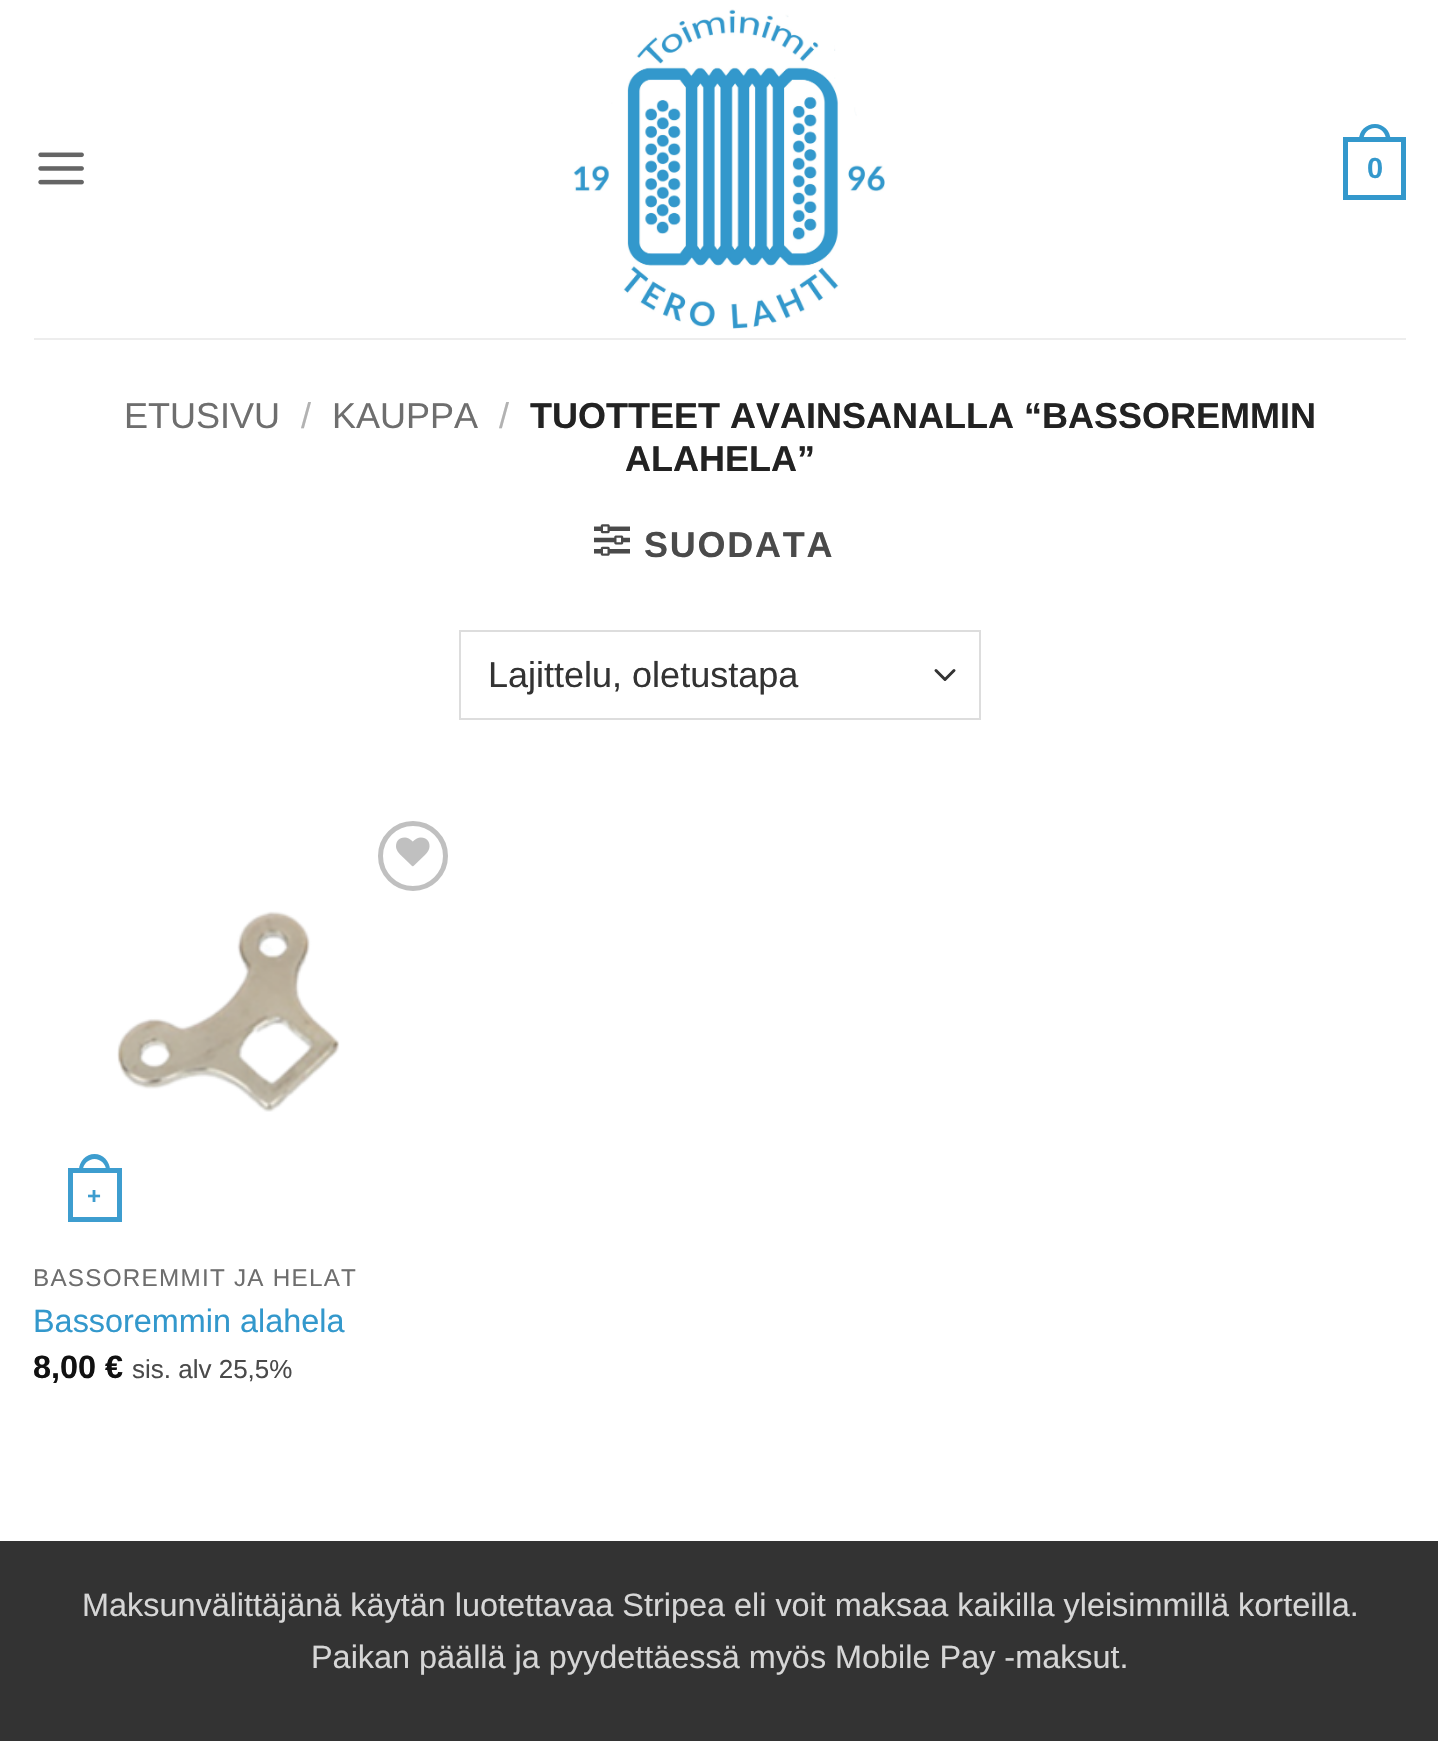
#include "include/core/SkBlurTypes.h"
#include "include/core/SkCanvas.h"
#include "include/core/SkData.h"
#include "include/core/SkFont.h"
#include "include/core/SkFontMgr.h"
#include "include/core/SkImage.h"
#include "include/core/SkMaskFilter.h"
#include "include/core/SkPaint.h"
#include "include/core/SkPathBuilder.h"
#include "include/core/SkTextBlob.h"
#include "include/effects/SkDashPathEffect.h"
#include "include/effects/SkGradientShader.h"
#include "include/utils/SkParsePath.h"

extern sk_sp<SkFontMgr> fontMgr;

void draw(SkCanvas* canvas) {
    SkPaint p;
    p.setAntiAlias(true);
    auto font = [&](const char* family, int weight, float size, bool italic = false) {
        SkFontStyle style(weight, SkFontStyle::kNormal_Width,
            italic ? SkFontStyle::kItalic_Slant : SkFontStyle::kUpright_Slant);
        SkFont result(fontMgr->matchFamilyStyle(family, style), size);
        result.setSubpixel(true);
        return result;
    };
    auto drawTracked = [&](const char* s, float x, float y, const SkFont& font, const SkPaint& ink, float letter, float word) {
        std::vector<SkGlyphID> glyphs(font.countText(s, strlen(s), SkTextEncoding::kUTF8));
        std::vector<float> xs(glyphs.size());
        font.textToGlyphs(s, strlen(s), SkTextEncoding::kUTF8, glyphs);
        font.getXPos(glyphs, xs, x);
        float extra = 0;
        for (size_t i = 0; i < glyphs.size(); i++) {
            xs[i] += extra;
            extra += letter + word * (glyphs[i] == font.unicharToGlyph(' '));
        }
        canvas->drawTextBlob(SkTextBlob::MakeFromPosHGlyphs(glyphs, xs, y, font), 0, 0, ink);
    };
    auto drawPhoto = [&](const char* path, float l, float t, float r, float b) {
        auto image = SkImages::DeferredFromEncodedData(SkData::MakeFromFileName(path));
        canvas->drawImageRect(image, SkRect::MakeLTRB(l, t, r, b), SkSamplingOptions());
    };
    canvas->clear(0xFFFFFFFF);
    drawPhoto("media/1.png", 38, 152, 84, 185);
    drawPhoto("media/2.png", 573, 9, 885, 329);
    p.setStyle(SkPaint::kStroke_Style);
    p.setStrokeWidth(5);
    p.setColor(0xFF3398CC);
    canvas->drawRect(SkRect::MakeLTRB(1345.5f, 139.5f, 1403.5f, 197.5f), p);
    p.setStyle(SkPaint::kFill_Style);
    canvas->drawPath(SkPathBuilder(SkPathFillType::kEvenOdd).moveTo(1375, 124).cubicTo(1383.5f, 124, 1390.5f, 131, 1390.5f, 139.5f).lineTo(1390.5f, 142).lineTo(1359, 142).lineTo(1359, 139.5f).cubicTo(1359, 131, 1366, 124, 1375, 124).close().moveTo(1375, 128).cubicTo(1381, 128, 1386, 133.5f, 1386, 139.5f).lineTo(1386, 142).lineTo(1363.5f, 142).lineTo(1363.5f, 139.5f).cubicTo(1363.5f, 133.5f, 1368.5f, 128, 1375, 128).close().detach(), p);
    auto font1 = font("Liberation Sans", 700, 29);
    canvas->drawString("0", 1367, 178, font1, p);
    p.setColor(0xFFEDEDED);
    canvas->drawRect(SkRect::MakeLTRB(34, 338, 1406, 340), p);
    auto font2 = font("Liberation Sans", 400, 36);
    p.setColor(0xFF6E6E6E);
    canvas->drawString("ETUSIVU", 124, 428, font2, p);
    p.setColor(0xFFB2B2B2);
    canvas->drawString("/", 301, 428, font2, p);
    p.setColor(0xFF6E6E6E);
    canvas->drawString("KAUPPA", 332, 428, font2, p);
    p.setColor(0xFFB2B2B2);
    canvas->drawString("/", 499, 428, font2, p);
    auto font3 = font("Liberation Sans", 700, 36);
    p.setColor(0xFF222222);
    canvas->drawString("TUOTTEET AVAINSANALLA “BASSOREMMIN", 530, 428, font3, p);
    canvas->drawString("ALAHELA”", 625, 471, font3, p);
    drawPhoto("media/3.png", 594, 524, 630, 556);
    p.setColor(0xFF4A4A4A);
    drawTracked("SUODATA", 644, 557, font3, p, 1.75f, 0);
    p.setStyle(SkPaint::kStroke_Style);
    p.setStrokeWidth(3);
    p.setStrokeCap(SkPaint::kRound_Cap);
    p.setStrokeJoin(SkPaint::kRound_Join);
    p.setColor(0xFF333333);
    canvas->drawPath(SkPathBuilder().moveTo(936, 670.5f).lineTo(945, 679.5f).lineTo(954, 670.5f).detach(), p);
    p.setStrokeWidth(2);
    p.setStrokeCap(SkPaint::kButt_Cap);
    p.setStrokeJoin(SkPaint::kMiter_Join);
    p.setColor(0xFFDDDDDD);
    canvas->drawRect(SkRect::MakeLTRB(460, 631, 980, 719), p);
    p.setStyle(SkPaint::kFill_Style);
    p.setColor(0xFF333333);
    canvas->drawString("Lajittelu, oletustapa", 488, 687, font2, p);
    p.setStyle(SkPaint::kStroke_Style);
    p.setStrokeWidth(5);
    p.setColor(0xFFC0C0C0);
    canvas->drawCircle(413, 856, 32.5f, p);
    drawPhoto("media/4.png", 396, 837, 430, 867);
    drawPhoto("media/5.png", 117, 911, 340, 1112);
    p.setColor(0xFF3D9DCF);
    canvas->drawRect(SkRect::MakeLTRB(70.5f, 1170.5f, 119.5f, 1219.5f), p);
    p.setStyle(SkPaint::kFill_Style);
    canvas->drawPath(SkPathBuilder(SkPathFillType::kEvenOdd).moveTo(94.5f, 1154).cubicTo(103, 1154, 110, 1161.5f, 110, 1170).lineTo(110, 1172).lineTo(79, 1172).lineTo(79, 1170).cubicTo(79, 1161.5f, 86, 1154, 94.5f, 1154).close().moveTo(94.5f, 1159).cubicTo(100.5f, 1159, 106, 1164, 106, 1170).lineTo(106, 1172).lineTo(83, 1172).lineTo(83, 1170).cubicTo(83, 1164, 88.5f, 1159, 94.5f, 1159).close().detach(), p);
    auto font4 = font("Liberation Sans", 700, 24);
    canvas->drawString("+", 87, 1204, font4, p);
    auto font5 = font("Liberation Sans", 400, 24.25f);
    p.setColor(0xFF6E6E6E);
    drawTracked("BASSOREMMIT JA HELAT", 33, 1286, font5, p, 1.25f, 0);
    auto font6 = font("Liberation Sans", 400, 32.4f);
    p.setColor(0xFF3398CC);
    canvas->drawString("Bassoremmin alahela", 33, 1332, font6, p);
    auto font7 = font("Liberation Sans", 700, 32.4f);
    p.setColor(0xFF111111);
    canvas->drawString("8,00 €", 33, 1378, font7, p);
    auto font8 = font("Liberation Sans", 400, 26);
    p.setColor(0xFF4A4A4A);
    canvas->drawString("sis. alv 25,5%", 132, 1378, font8, p);
    p.setColor(0xFF333333);
    canvas->drawRect(SkRect::MakeLTRB(0, 1541, 1438, 1741), p);
    p.setColor(0xFFD6D6D6);
    canvas->drawString("Maksunvälittäjänä käytän luotettavaa Stripea eli voit maksaa kaikilla yleisimmillä korteilla.", 82, 1616, font6, p);
    canvas->drawString("Paikan päällä ja pyydettäessä myös Mobile Pay -maksut.", 311, 1668, font6, p);
}
